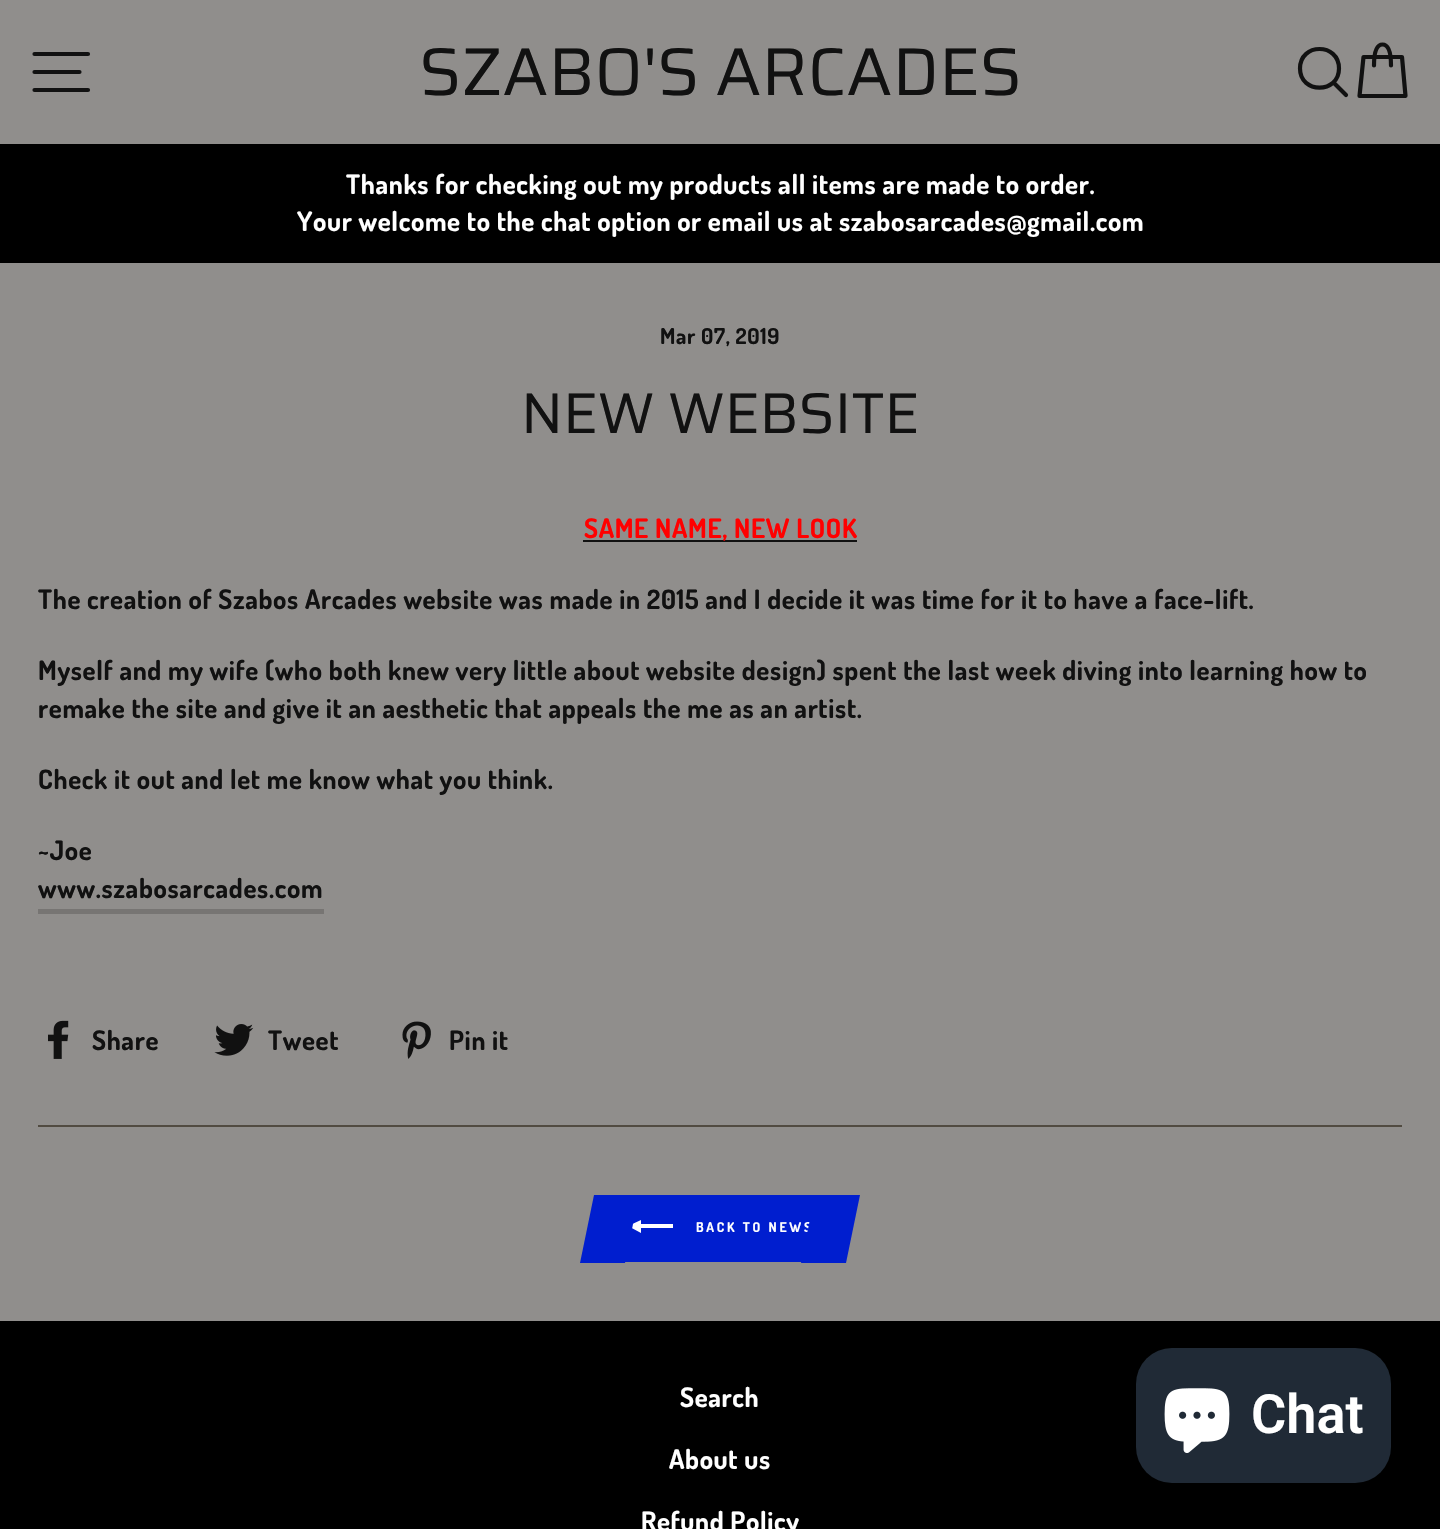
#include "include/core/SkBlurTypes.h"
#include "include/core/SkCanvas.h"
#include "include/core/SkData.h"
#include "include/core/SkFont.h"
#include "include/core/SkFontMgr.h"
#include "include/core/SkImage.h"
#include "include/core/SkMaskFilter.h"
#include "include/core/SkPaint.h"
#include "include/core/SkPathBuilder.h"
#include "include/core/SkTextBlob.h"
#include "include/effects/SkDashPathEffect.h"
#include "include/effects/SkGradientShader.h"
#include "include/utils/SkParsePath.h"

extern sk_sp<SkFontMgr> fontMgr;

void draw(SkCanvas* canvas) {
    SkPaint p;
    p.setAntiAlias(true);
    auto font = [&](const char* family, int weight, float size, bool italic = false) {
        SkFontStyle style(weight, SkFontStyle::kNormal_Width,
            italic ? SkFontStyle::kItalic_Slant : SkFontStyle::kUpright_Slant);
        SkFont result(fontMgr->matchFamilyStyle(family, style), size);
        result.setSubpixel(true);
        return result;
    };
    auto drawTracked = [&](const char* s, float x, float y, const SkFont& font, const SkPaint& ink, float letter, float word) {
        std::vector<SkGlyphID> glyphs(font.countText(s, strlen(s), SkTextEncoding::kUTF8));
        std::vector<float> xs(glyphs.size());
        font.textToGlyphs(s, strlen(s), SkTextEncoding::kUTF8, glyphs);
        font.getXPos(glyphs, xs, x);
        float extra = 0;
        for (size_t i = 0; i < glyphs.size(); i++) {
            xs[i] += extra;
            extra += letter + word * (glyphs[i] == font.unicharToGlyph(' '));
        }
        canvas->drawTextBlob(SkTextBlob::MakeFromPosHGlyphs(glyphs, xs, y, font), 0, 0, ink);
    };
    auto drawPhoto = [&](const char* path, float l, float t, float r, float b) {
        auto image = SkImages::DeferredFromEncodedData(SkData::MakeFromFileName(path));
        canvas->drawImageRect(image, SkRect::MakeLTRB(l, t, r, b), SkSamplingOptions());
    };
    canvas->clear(0xFF908E8C);
    p.setStyle(SkPaint::kStroke_Style);
    p.setStrokeWidth(4.2f);
    p.setStrokeCap(SkPaint::kRound_Cap);
    p.setStrokeJoin(SkPaint::kRound_Join);
    p.setColor(0xFF111111);
    canvas->drawPath(SkPathBuilder().moveTo(34.5f, 54).lineTo(88, 54).moveTo(34.5f, 72).lineTo(79.5f, 72).moveTo(34.5f, 90).lineTo(88, 90).detach(), p);
    auto font1 = font("Saira", 400, 67.5f);
    p.setStyle(SkPaint::kFill_Style);
    canvas->drawString("SZABO'S ARCADES", 419, 95, font1, p);
    p.setStyle(SkPaint::kStroke_Style);
    canvas->drawPath(SkPathBuilder().moveTo(1339, 68.5f).cubicTo(1339, 94, 1300, 94, 1300, 68.5f).cubicTo(1300, 42.5f, 1339, 42.5f, 1339, 68.5f).close().moveTo(1346, 95).lineTo(1333.5f, 82.5f).detach(), p);
    canvas->drawPath(SkPathBuilder().moveTo(1374, 65.5f).cubicTo(1374, 49, 1378, 44.5f, 1382.5f, 44.5f).cubicTo(1387, 44.5f, 1391, 49, 1391, 65.5f).moveTo(1363.5f, 57).lineTo(1402, 57).lineTo(1405.5f, 96).lineTo(1359.5f, 96).close().detach(), p);
    p.setStyle(SkPaint::kFill_Style);
    p.setColor(0xFF000000);
    canvas->drawRect(SkRect::MakeLTRB(0, 144, 1440, 263), p);
    auto font2 = font("Dosis", 700, 26.8f);
    p.setColor(0xFFFFFFFF);
    drawTracked("Thanks for checking out my products all items are made to order.", 346, 194, font2, p, 0.67f, 0);
    drawTracked("Your welcome to the chat option or email us at szabosarcades@gmail.com", 297, 231, font2, p, 0.67f, 0);
    auto font3 = font("Dosis", 700, 22);
    p.setColor(0xFF111111);
    drawTracked("Mar 07, 2019", 660, 344, font3, p, 0.67f, 0);
    auto font4 = font("Saira", 400, 57.5f);
    canvas->drawString("NEW WEBSITE", 521, 433, font4, p);
    canvas->drawRect(SkRect::MakeLTRB(583, 540, 857, 542), p);
    p.setColor(0xFFFF0000);
    drawTracked("SAME NAME, NEW LOOK", 584, 538, font2, p, 0.67f, 0);
    p.setColor(0xFF111111);
    {
        const struct { const char* s; float x, y; } items[] = {
            {"The creation of Szabos Arcades website was made in 2015 and I decide it was time for it to have a face-lift.", 38, 609},
            {"Myself and my wife (who both knew very little about website design) spent the last week diving into learning how to", 38, 680},
            {"remake the site and give it an aesthetic that appeals the me as an artist.", 38, 718},
            {"Check it out and let me know what you think.", 38, 789},
            {"~Joe", 38, 860},
        };
        for (auto [s, x, y] : items) {
            drawTracked(s, x, y, font2, p, 0.67f, 0);
        }
    }
    p.setColor(0xFF777573);
    canvas->drawRect(SkRect::MakeLTRB(38, 909, 324, 914), p);
    p.setColor(0xFF111111);
    drawTracked("www.szabosarcades.com", 38, 898, font2, p, 0.67f, 0);
    drawPhoto("media/1.png", 48, 1020, 69, 1059);
    drawTracked("Share", 92, 1050, font2, p, 0.67f, 0);
    drawPhoto("media/2.png", 214, 1024, 254, 1056);
    drawTracked("Tweet", 268, 1050, font2, p, 0.67f, 0);
    drawPhoto("media/3.png", 402, 1021, 431, 1059);
    drawTracked("Pin it", 449, 1050, font2, p, 0.67f, 0);
    p.setColor(0xFF514B41);
    canvas->drawRect(SkRect::MakeLTRB(38, 1125, 1402, 1127), p);
    p.setColor(0xFF001ECF);
    canvas->drawRect(SkRect::MakeLTRB(625, 1195, 815, 1262), p);
    p.setColor(0xFFFFFFFF);
    canvas->drawPath(SkPathBuilder().moveTo(673, 1224).lineTo(673, 1228).lineTo(641, 1228).lineTo(641, 1233).lineTo(628, 1226).lineTo(641, 1220).lineTo(641, 1224).close().detach(), p);
    p.setColor(0xFF001ECF);
    canvas->drawPath(SkPathBuilder().moveTo(594, 1195).lineTo(639, 1195).lineTo(625, 1263).lineTo(580, 1263).close().detach(), p);
    auto font5 = font("Dosis", 700, 13.5f);
    p.setColor(0xFFFFFFFF);
    drawTracked("BACK TO NEWS", 696, 1232, font5, p, 2.75f, 0);
    p.setColor(0xFF001ECF);
    canvas->drawPath(SkPathBuilder().moveTo(815, 1195).lineTo(860, 1195).lineTo(846, 1263).lineTo(801, 1263).close().detach(), p);
    p.setColor(0xFF000000);
    canvas->drawRect(SkRect::MakeLTRB(0, 1321, 1440, 1529), p);
    p.setColor(0xFFFFFFFF);
    {
        const struct { const char* s; float x, y; } items[] = {
            {"Search", 680, 1407},
            {"About us", 669, 1469},
            {"Refund Policy", 641, 1531},
        };
        for (auto [s, x, y] : items) {
            drawTracked(s, x, y, font2, p, 0.67f, 0);
        }
    }
    p.setColor(0xFF202A36);
    canvas->drawRoundRect(SkRect::MakeLTRB(1136, 1348, 1391, 1483), 36, 36, p);
    drawPhoto("media/4.png", 1164, 1388, 1230, 1453);
    auto font6 = font("Roboto", 600, 54);
    p.setColor(0xFFFFFFFF);
    canvas->drawString("Chat", 1251, 1433, font6, p);
}
